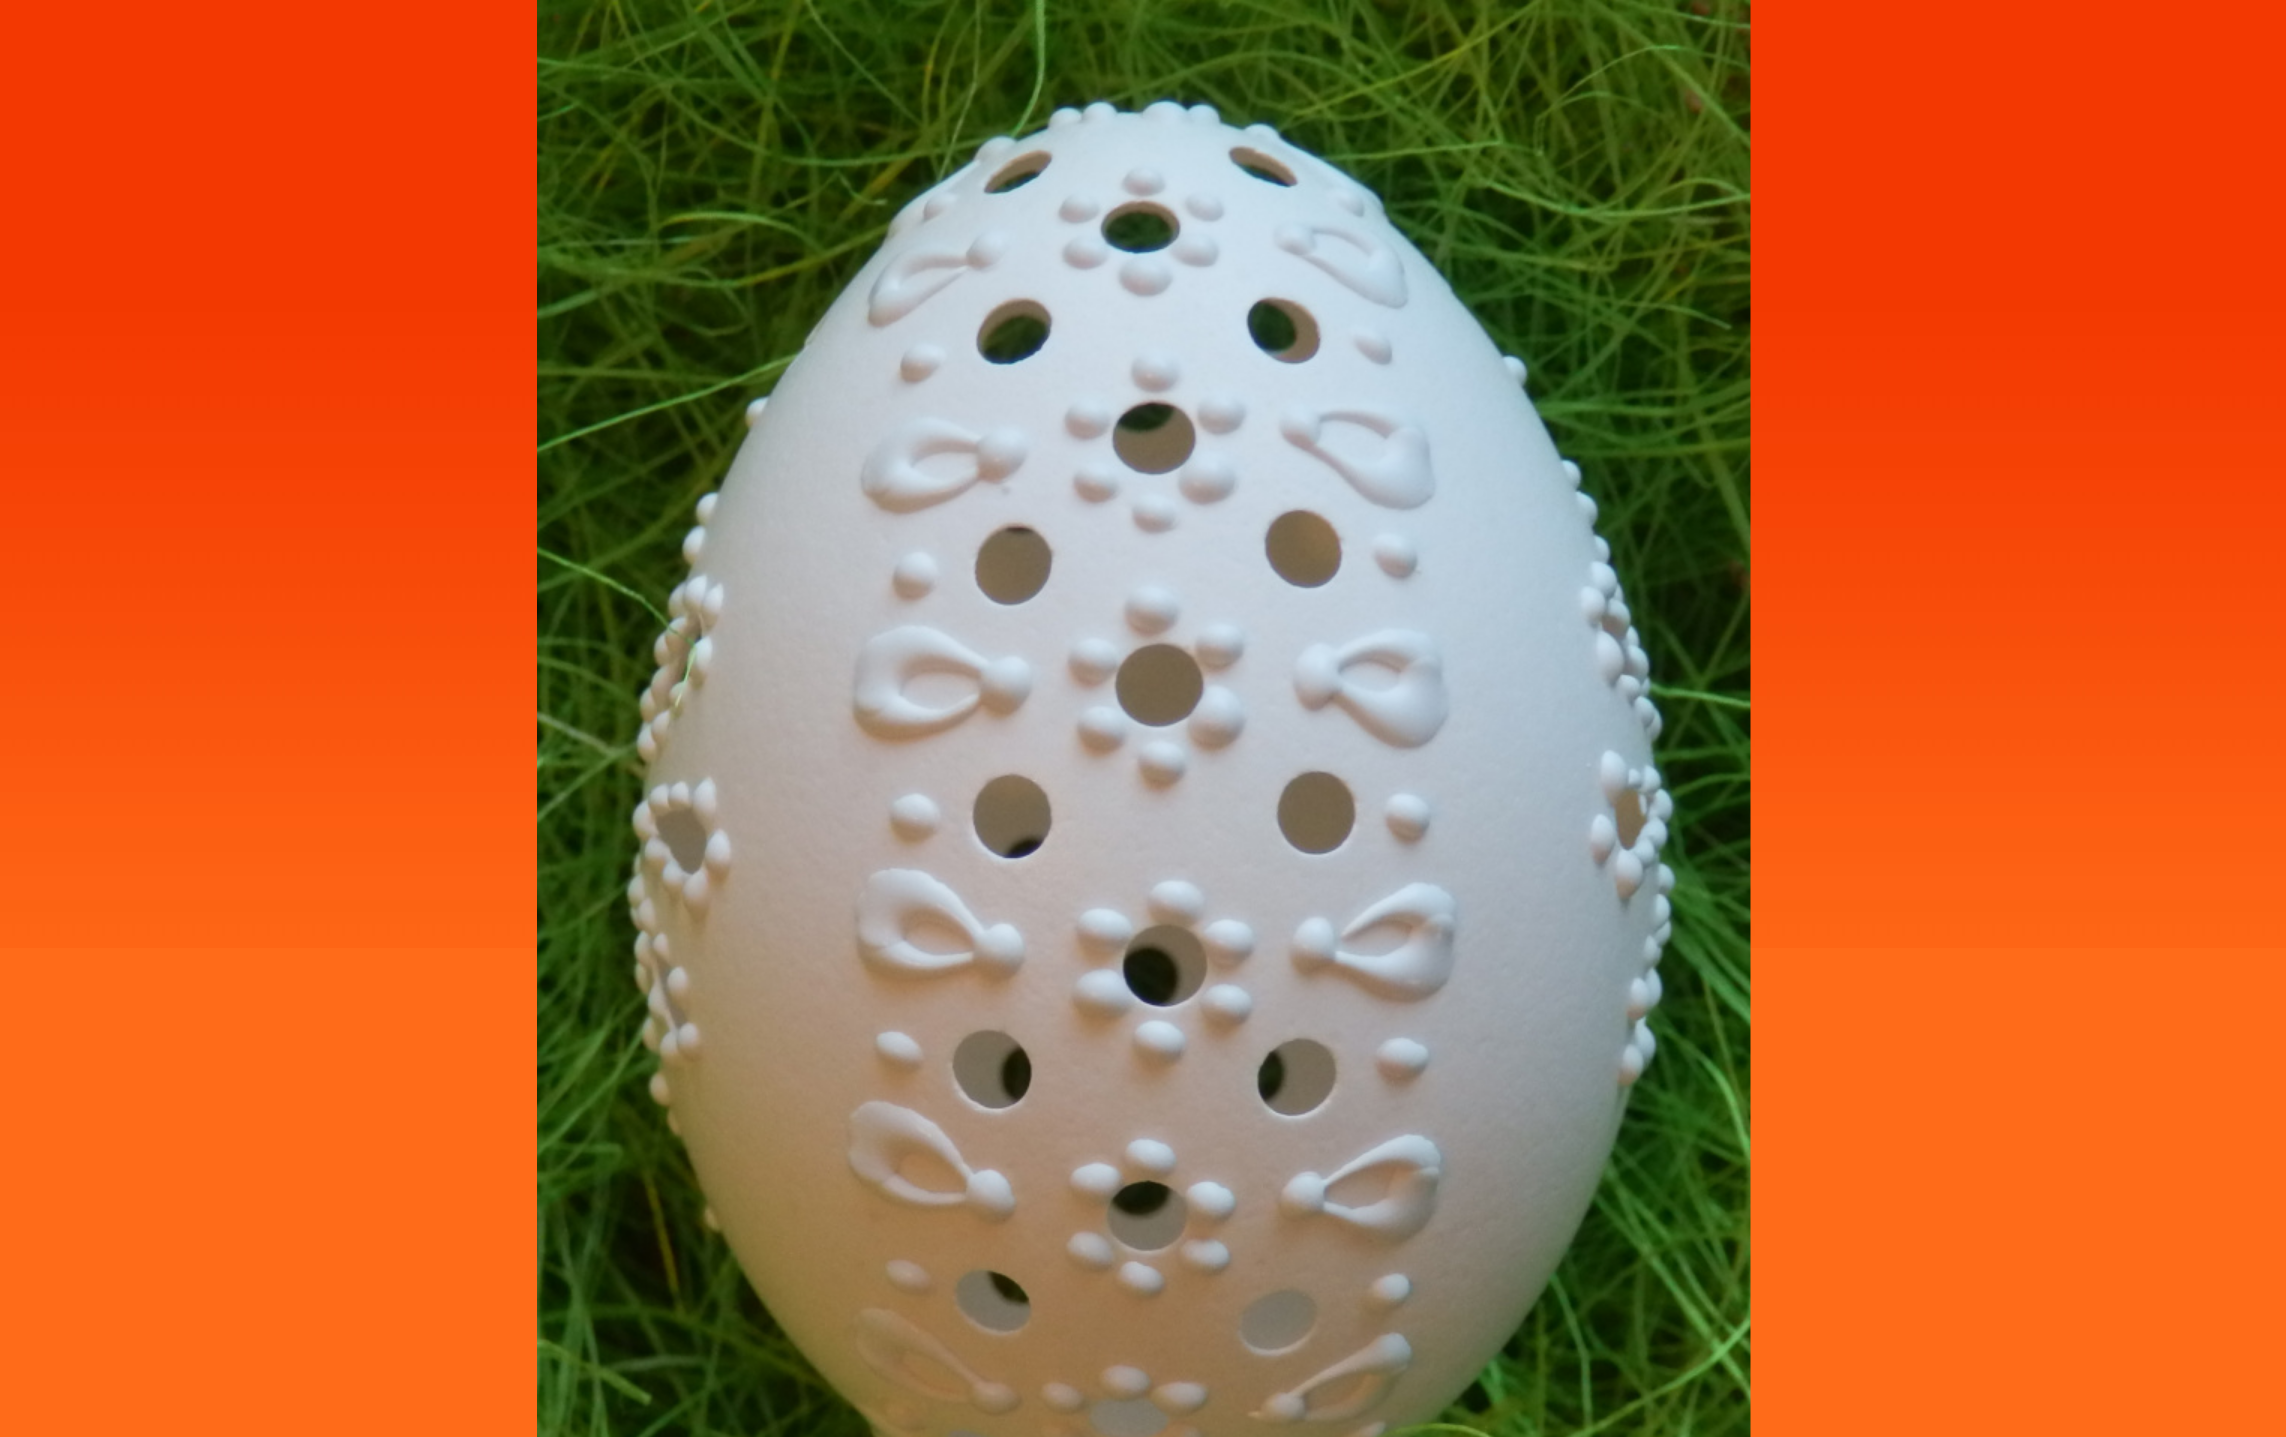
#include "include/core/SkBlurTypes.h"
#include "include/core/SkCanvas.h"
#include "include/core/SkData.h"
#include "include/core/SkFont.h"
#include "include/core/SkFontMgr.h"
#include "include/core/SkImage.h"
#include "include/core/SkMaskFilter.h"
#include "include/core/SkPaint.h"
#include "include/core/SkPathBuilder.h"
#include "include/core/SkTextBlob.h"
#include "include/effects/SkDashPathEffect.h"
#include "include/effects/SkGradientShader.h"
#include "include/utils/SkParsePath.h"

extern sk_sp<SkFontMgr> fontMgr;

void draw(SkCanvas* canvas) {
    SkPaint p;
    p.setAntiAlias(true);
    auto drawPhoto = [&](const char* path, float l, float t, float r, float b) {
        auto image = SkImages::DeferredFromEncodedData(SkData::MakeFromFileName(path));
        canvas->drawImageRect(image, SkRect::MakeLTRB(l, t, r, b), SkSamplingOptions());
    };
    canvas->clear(0xFFFF6B19);
    drawPhoto("media/1.png", 0, 0, 2286, 948);
    drawPhoto("media/2.png", 537, 0, 1751, 1437);
}
